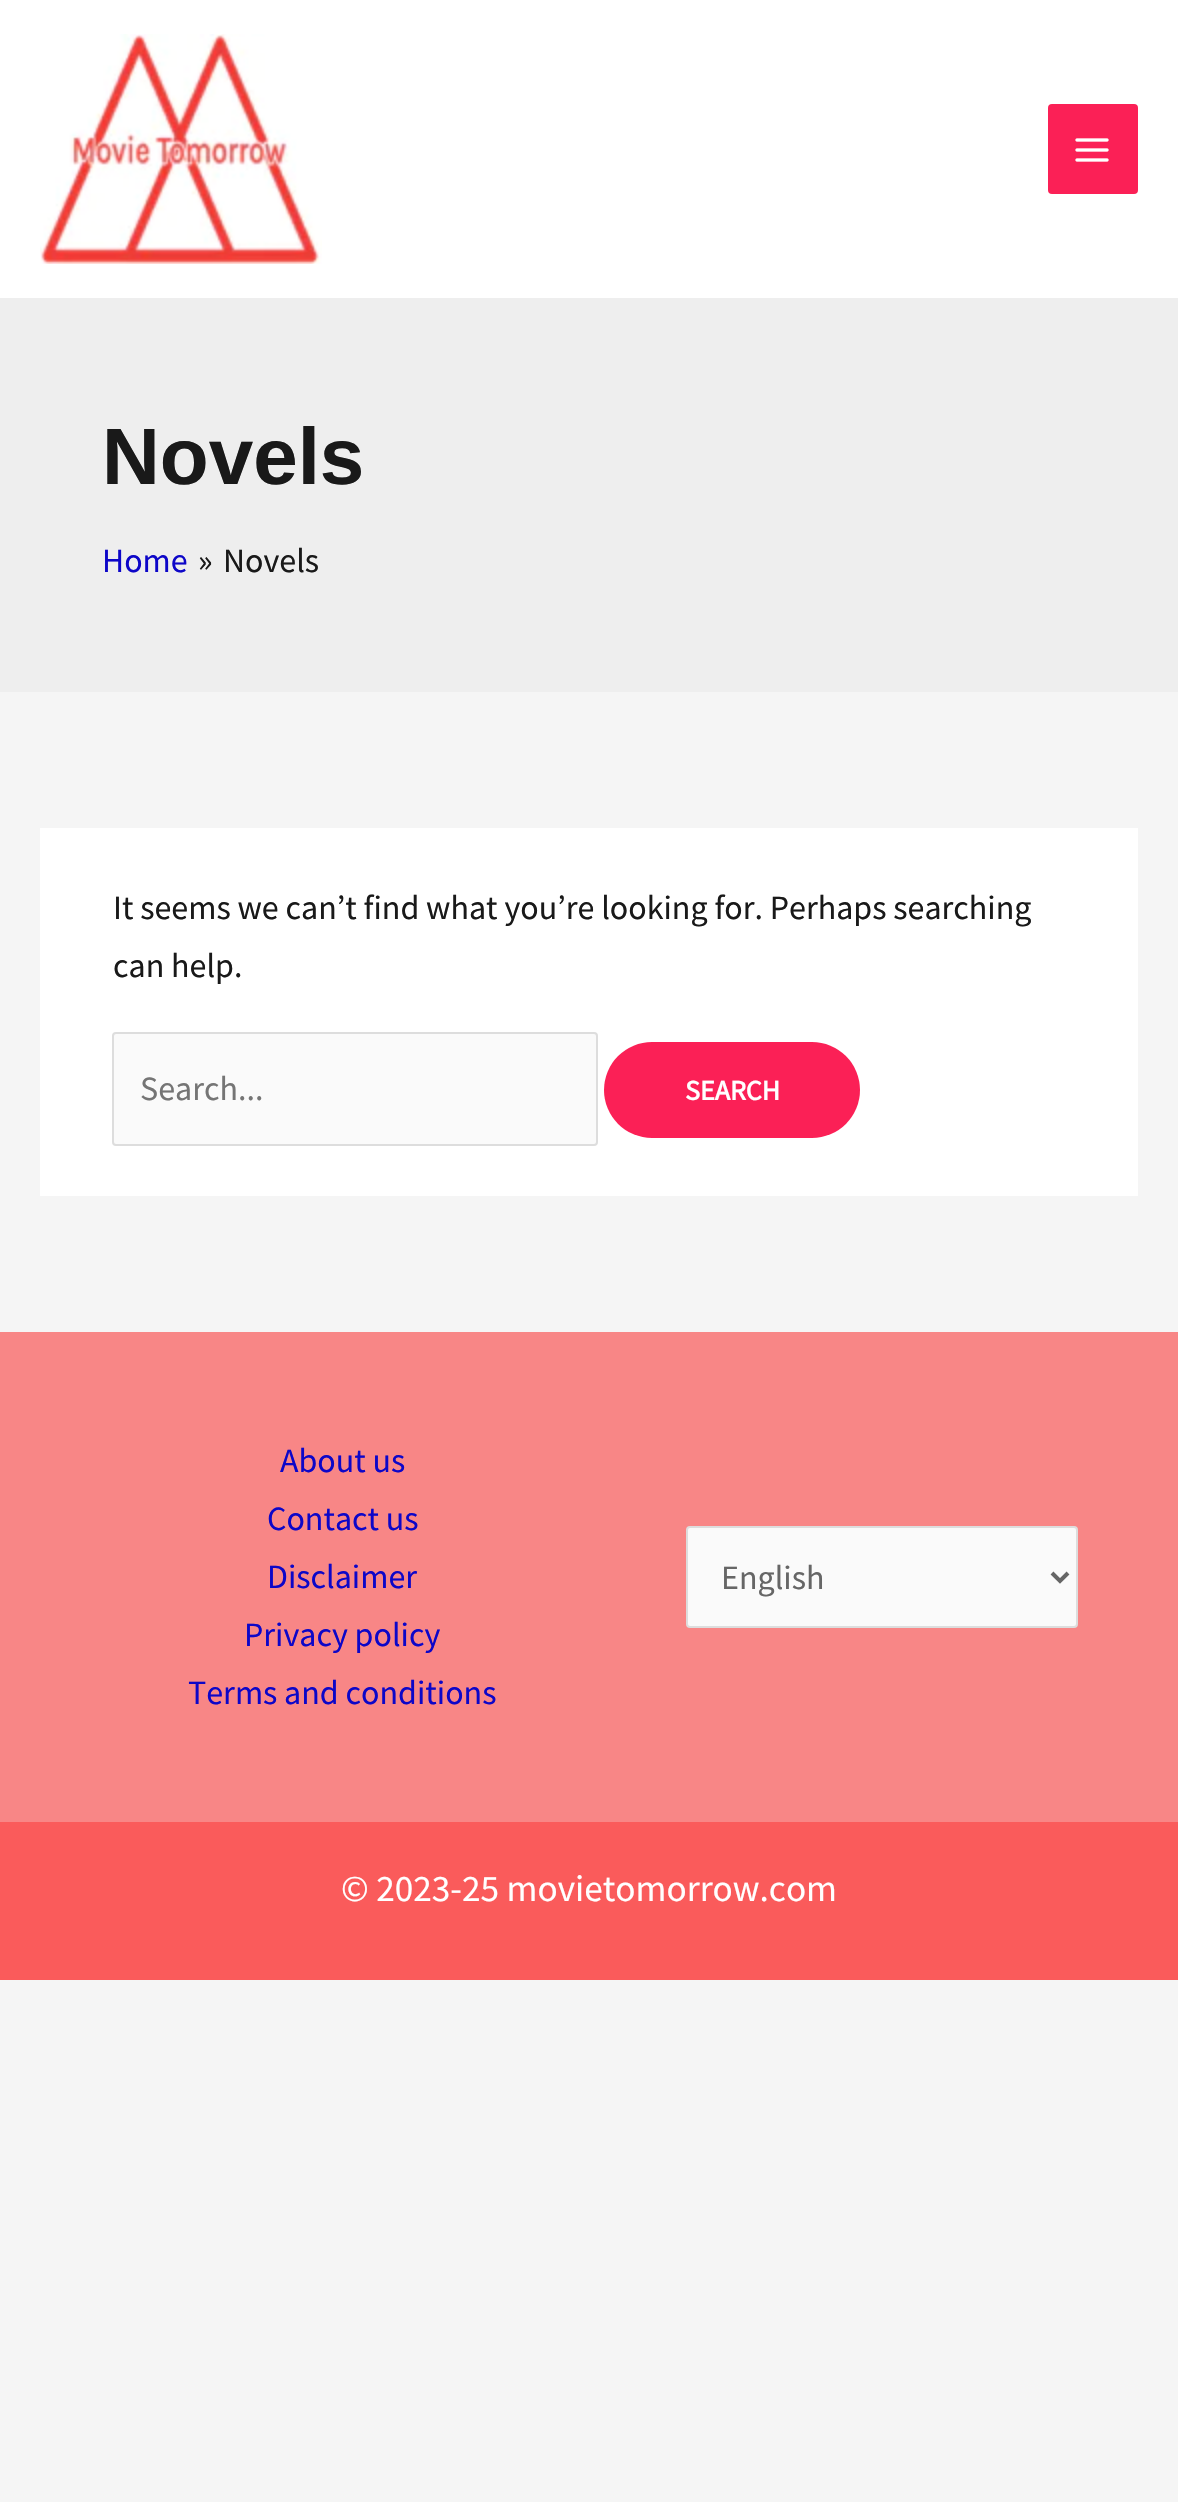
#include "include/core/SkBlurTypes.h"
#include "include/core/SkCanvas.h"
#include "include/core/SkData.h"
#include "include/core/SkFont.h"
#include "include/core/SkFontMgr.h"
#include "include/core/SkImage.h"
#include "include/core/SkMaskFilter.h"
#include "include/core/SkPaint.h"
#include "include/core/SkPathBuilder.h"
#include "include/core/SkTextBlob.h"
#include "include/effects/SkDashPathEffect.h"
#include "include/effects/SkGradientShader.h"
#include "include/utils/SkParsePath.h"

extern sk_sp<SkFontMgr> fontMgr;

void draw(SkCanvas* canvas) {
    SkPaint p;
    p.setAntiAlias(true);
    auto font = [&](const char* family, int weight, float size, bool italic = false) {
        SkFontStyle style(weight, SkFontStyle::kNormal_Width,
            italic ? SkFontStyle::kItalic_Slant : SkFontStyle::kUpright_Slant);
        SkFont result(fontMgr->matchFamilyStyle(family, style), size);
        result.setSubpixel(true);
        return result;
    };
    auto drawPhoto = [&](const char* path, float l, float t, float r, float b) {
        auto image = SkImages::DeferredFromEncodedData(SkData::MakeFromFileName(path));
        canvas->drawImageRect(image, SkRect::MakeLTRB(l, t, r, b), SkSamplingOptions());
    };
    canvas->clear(0xFFF5F5F5);
    p.setColor(0xFFFFFFFF);
    canvas->drawRect(SkRect::MakeLTRB(0, 0, 1178, 298), p);
    drawPhoto("media/1.png", 40, 34, 322, 264);
    p.setColor(0xFFFB2056);
    canvas->drawRoundRect(SkRect::MakeLTRB(1048, 104, 1138, 194), 4, 4, p);
    drawPhoto("media/2.png", 1075, 138, 1109, 162);
    p.setColor(0xFFEEEEEE);
    canvas->drawRect(SkRect::MakeLTRB(0, 298, 1178, 692), p);
    auto font1 = font("Liberation Sans", 700, 80);
    p.setColor(0xFF191919);
    canvas->drawString("Novels", 102, 484, font1, p);
    auto font2 = font("Source Sans Pro", 400, 34);
    p.setColor(0xFF0D06C8);
    canvas->drawString("Home", 102, 572, font2, p);
    p.setColor(0xFF191919);
    canvas->drawString("»", 198, 572, font2, p);
    canvas->drawString("Novels", 223, 572, font2, p);
    p.setColor(0xFFFFFFFF);
    canvas->drawRect(SkRect::MakeLTRB(40, 828, 1138, 1196), p);
    p.setColor(0xFF191919);
    canvas->drawString("It seems we can’t find what you’re looking for. Perhaps searching", 113, 919, font2, p);
    canvas->drawString("can help.", 113, 977, font2, p);
    p.setColor(0xFFFAFAFA);
    canvas->drawRoundRect(SkRect::MakeLTRB(113, 1033, 597, 1145), 3, 3, p);
    p.setStyle(SkPaint::kStroke_Style);
    p.setStrokeWidth(2);
    p.setColor(0xFFDDDDDD);
    canvas->drawRoundRect(SkRect::MakeLTRB(113, 1033, 597, 1145), 3, 3, p);
    p.setStyle(SkPaint::kFill_Style);
    p.setColor(0xFF757575);
    canvas->drawString("Search...", 140, 1100, font2, p);
    p.setColor(0xFFFB2056);
    canvas->drawRoundRect(SkRect::MakeLTRB(604, 1042, 860, 1138), 48, 48, p);
    auto font3 = font("Source Sans Pro", 700, 28);
    p.setColor(0xFFFFFFFF);
    canvas->drawString("SEARCH", 685, 1100, font3, p);
    p.setColor(0xFFF88686);
    canvas->drawRect(SkRect::MakeLTRB(0, 1332, 1178, 1822), p);
    p.setColor(0xFF0D06C8);
    {
        const struct { const char* s; float x, y; } items[] = {
            {"About us", 280, 1472},
            {"Contact us", 267, 1530},
            {"Disclaimer", 267, 1588},
            {"Privacy policy", 244, 1646},
            {"Terms and conditions", 188, 1704},
        };
        for (auto [s, x, y] : items) {
            canvas->drawString(s, x, y, font2, p);
        }
    }
    p.setColor(0xFFFAFAFA);
    canvas->drawRoundRect(SkRect::MakeLTRB(687, 1527, 1077, 1627), 3, 3, p);
    p.setStyle(SkPaint::kStroke_Style);
    p.setColor(0xFFDDDDDD);
    canvas->drawRoundRect(SkRect::MakeLTRB(687, 1527, 1077, 1627), 3, 3, p);
    p.setStrokeWidth(4);
    p.setColor(0xFF666666);
    canvas->drawPath(SkPathBuilder().moveTo(1052, 1573).lineTo(1060, 1581).lineTo(1068, 1573).detach(), p);
    p.setStyle(SkPaint::kFill_Style);
    canvas->drawString("English", 721, 1589, font2, p);
    p.setColor(0xFFFA5B5B);
    canvas->drawRect(SkRect::MakeLTRB(0, 1822, 1178, 1980), p);
    auto font4 = font("Source Sans Pro", 400, 37.3f);
    p.setColor(0xFFFFFFFF);
    canvas->drawString("© 2023-25 movietomorrow.com", 341, 1901, font4, p);
}
